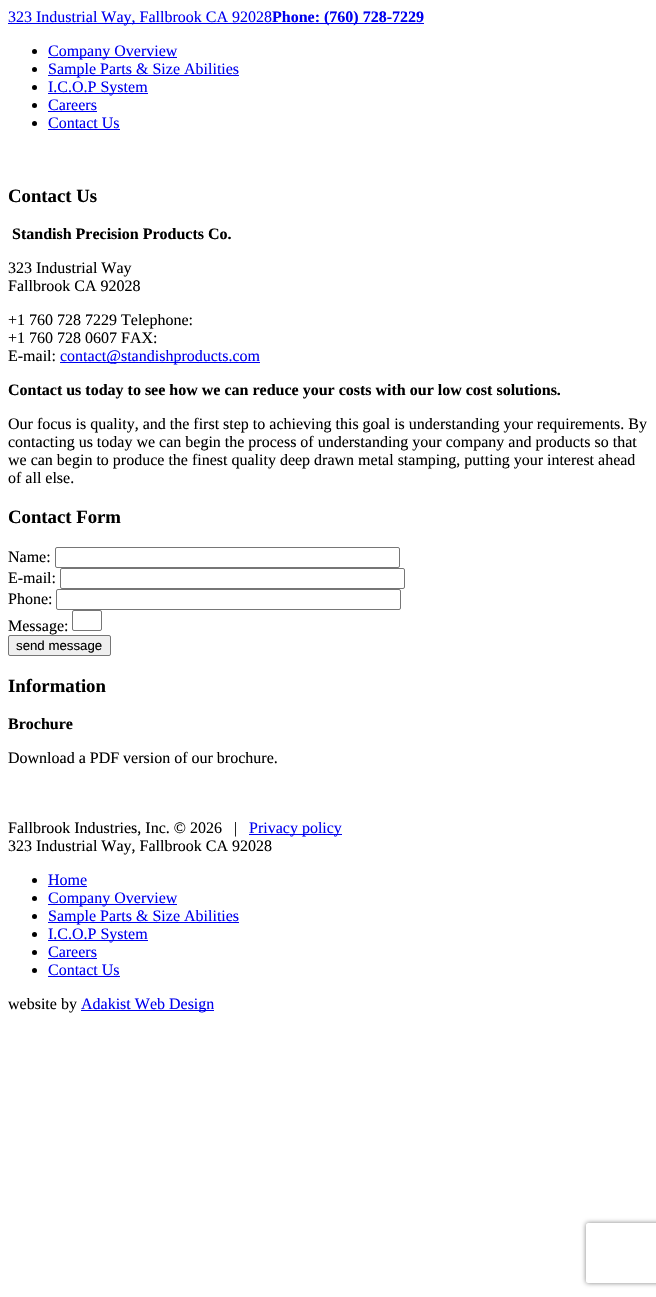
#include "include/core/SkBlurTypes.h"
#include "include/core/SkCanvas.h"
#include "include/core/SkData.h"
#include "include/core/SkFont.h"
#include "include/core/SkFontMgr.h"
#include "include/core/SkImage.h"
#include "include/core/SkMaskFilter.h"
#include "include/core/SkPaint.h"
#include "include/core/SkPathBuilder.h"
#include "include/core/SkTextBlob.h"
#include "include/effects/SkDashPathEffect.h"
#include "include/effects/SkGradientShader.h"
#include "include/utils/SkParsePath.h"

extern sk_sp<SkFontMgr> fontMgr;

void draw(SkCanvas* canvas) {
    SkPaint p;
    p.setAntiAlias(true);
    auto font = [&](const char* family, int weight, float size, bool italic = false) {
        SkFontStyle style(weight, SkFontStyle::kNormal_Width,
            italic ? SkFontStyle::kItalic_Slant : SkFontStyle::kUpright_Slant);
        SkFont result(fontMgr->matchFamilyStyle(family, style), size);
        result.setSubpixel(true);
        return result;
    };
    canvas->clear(0xFFFFFFFF);
    p.setColor(0xFF0000EE);
    canvas->drawRect(SkRect::MakeLTRB(8, 23, 424, 24), p);
    auto font1 = font("Liberation Serif", 400, 16);
    canvas->drawString("323 Industrial Way, Fallbrook CA 92028", 8, 22, font1, p);
    auto font2 = font("Liberation Serif", 700, 16);
    canvas->drawString("Phone: (760) 728-7229", 272, 22, font2, p);
    p.setColor(0xFF000000);
    canvas->drawCircle(34.5f, 51.5f, 2.5f, p);
    p.setColor(0xFF0000EE);
    canvas->drawRect(SkRect::MakeLTRB(48, 57, 177, 58), p);
    canvas->drawString("Company Overview", 48, 56, font1, p);
    p.setColor(0xFF000000);
    canvas->drawCircle(34.5f, 69.5f, 2.5f, p);
    p.setColor(0xFF0000EE);
    canvas->drawRect(SkRect::MakeLTRB(48, 75, 239, 76), p);
    canvas->drawString("Sample Parts & Size Abilities", 48, 74, font1, p);
    p.setColor(0xFF000000);
    canvas->drawCircle(34.5f, 87.5f, 2.5f, p);
    p.setColor(0xFF0000EE);
    canvas->drawRect(SkRect::MakeLTRB(48, 93, 148, 94), p);
    canvas->drawString("I.C.O.P System", 48, 92, font1, p);
    p.setColor(0xFF000000);
    canvas->drawCircle(34.5f, 105.5f, 2.5f, p);
    p.setColor(0xFF0000EE);
    canvas->drawString("Careers", 48, 110, font1, p);
    canvas->drawRect(SkRect::MakeLTRB(48, 111, 97, 112), p);
    p.setColor(0xFF000000);
    canvas->drawCircle(34.5f, 123.5f, 2.5f, p);
    p.setColor(0xFF0000EE);
    canvas->drawString("Contact Us", 48, 128, font1, p);
    canvas->drawRect(SkRect::MakeLTRB(48, 129, 120, 130), p);
    auto font3 = font("Liberation Serif", 700, 18.75f);
    p.setColor(0xFF000000);
    canvas->drawString("Contact Us", 8, 202, font3, p);
    canvas->drawString("Standish Precision Products Co.", 12, 239, font2, p);
    {
        const struct { const char* s; float x, y; } items[] = {
            {"323 Industrial Way", 8, 273},
            {"Fallbrook CA 92028", 8, 291},
            {"+1 760 728 7229 Telephone:", 8, 325},
            {"+1 760 728 0607 FAX:", 8, 343},
            {"E-mail:", 8, 361},
        };
        for (auto [s, x, y] : items) {
            canvas->drawString(s, x, y, font1, p);
        }
    }
    p.setColor(0xFF0000EE);
    canvas->drawRect(SkRect::MakeLTRB(60, 362, 260, 363), p);
    canvas->drawString("contact@standishproducts.com", 60, 361, font1, p);
    p.setColor(0xFF000000);
    canvas->drawString("Contact us today to see how we can reduce your costs with our low cost solutions.", 8, 395, font2, p);
    {
        const struct { const char* s; float x, y; } items[] = {
            {"Our focus is quality, and the first step to achieving this goal is understanding your requirements. By", 8, 429},
            {"contacting us today we can begin the process of understanding your company and products so that", 8, 447},
            {"we can begin to produce the finest quality deep drawn metal stamping, putting your interest ahead", 8, 465},
            {"of all else.", 8, 483},
        };
        for (auto [s, x, y] : items) {
            canvas->drawString(s, x, y, font1, p);
        }
    }
    canvas->drawString("Contact Form", 8, 523, font3, p);
    canvas->drawString("Name:", 8, 562, font1, p);
    p.setStyle(SkPaint::kStroke_Style);
    p.setStrokeWidth(1);
    p.setColor(0xFF767676);
    canvas->drawRoundRect(SkRect::MakeLTRB(55.5f, 547.5f, 399.5f, 567.5f), 1.5f, 1.5f, p);
    p.setStyle(SkPaint::kFill_Style);
    p.setColor(0xFF000000);
    canvas->drawString("E-mail:", 8, 583, font1, p);
    p.setStyle(SkPaint::kStroke_Style);
    p.setColor(0xFF767676);
    canvas->drawRoundRect(SkRect::MakeLTRB(60.5f, 568.5f, 404.5f, 588.5f), 1.5f, 1.5f, p);
    p.setStyle(SkPaint::kFill_Style);
    p.setColor(0xFF000000);
    canvas->drawString("Phone:", 8, 604, font1, p);
    p.setStyle(SkPaint::kStroke_Style);
    p.setColor(0xFF767676);
    canvas->drawRoundRect(SkRect::MakeLTRB(56.5f, 589.5f, 400.5f, 609.5f), 1.5f, 1.5f, p);
    p.setStyle(SkPaint::kFill_Style);
    p.setColor(0xFF000000);
    canvas->drawString("Message:", 8, 631, font1, p);
    p.setStyle(SkPaint::kStroke_Style);
    p.setColor(0xFF767676);
    canvas->drawRoundRect(SkRect::MakeLTRB(72.5f, 610.5f, 101.5f, 630.5f), 1.5f, 1.5f, p);
    p.setStyle(SkPaint::kFill_Style);
    p.setColor(0xFFEFEFEF);
    canvas->drawRoundRect(SkRect::MakeLTRB(8.5f, 635.5f, 110.5f, 655.5f), 1.5f, 1.5f, p);
    p.setStyle(SkPaint::kStroke_Style);
    p.setColor(0xFF767676);
    canvas->drawRoundRect(SkRect::MakeLTRB(8.5f, 635.5f, 110.5f, 655.5f), 1.5f, 1.5f, p);
    auto font4 = font("Liberation Sans", 400, 13.25f);
    p.setStyle(SkPaint::kFill_Style);
    p.setColor(0xFF000000);
    canvas->drawString("send message", 16, 650, font4, p);
    canvas->drawString("Information", 8, 692, font3, p);
    canvas->drawString("Brochure", 8, 729, font2, p);
    canvas->drawString("Download a PDF version of our brochure.", 8, 763, font1, p);
    canvas->drawString("Fallbrook Industries, Inc. © 2026   |", 8, 833, font1, p);
    p.setColor(0xFF0000EE);
    canvas->drawRect(SkRect::MakeLTRB(249, 834, 342, 835), p);
    canvas->drawString("Privacy policy", 249, 833, font1, p);
    p.setColor(0xFF000000);
    canvas->drawString("323 Industrial Way, Fallbrook CA 92028", 8, 851, font1, p);
    canvas->drawCircle(34.5f, 880.5f, 2.5f, p);
    p.setColor(0xFF0000EE);
    canvas->drawString("Home", 48, 885, font1, p);
    canvas->drawRect(SkRect::MakeLTRB(48, 886, 87, 887), p);
    p.setColor(0xFF000000);
    canvas->drawCircle(34.5f, 898.5f, 2.5f, p);
    p.setColor(0xFF0000EE);
    canvas->drawRect(SkRect::MakeLTRB(48, 904, 177, 905), p);
    canvas->drawString("Company Overview", 48, 903, font1, p);
    p.setColor(0xFF000000);
    canvas->drawCircle(34.5f, 916.5f, 2.5f, p);
    p.setColor(0xFF0000EE);
    canvas->drawRect(SkRect::MakeLTRB(48, 922, 239, 923), p);
    canvas->drawString("Sample Parts & Size Abilities", 48, 921, font1, p);
    p.setColor(0xFF000000);
    canvas->drawCircle(34.5f, 934.5f, 2.5f, p);
    p.setColor(0xFF0000EE);
    canvas->drawRect(SkRect::MakeLTRB(48, 940, 148, 941), p);
    canvas->drawString("I.C.O.P System", 48, 939, font1, p);
    p.setColor(0xFF000000);
    canvas->drawCircle(34.5f, 952.5f, 2.5f, p);
    p.setColor(0xFF0000EE);
    canvas->drawString("Careers", 48, 957, font1, p);
    canvas->drawRect(SkRect::MakeLTRB(48, 958, 97, 959), p);
    p.setColor(0xFF000000);
    canvas->drawCircle(34.5f, 970.5f, 2.5f, p);
    p.setColor(0xFF0000EE);
    canvas->drawString("Contact Us", 48, 975, font1, p);
    canvas->drawRect(SkRect::MakeLTRB(48, 976, 120, 977), p);
    p.setColor(0xFF000000);
    canvas->drawString("website by", 8, 1009, font1, p);
    p.setColor(0xFF0000EE);
    canvas->drawRect(SkRect::MakeLTRB(81, 1010, 214, 1011), p);
    canvas->drawString("Adakist Web Design", 81, 1009, font1, p);
    canvas->save();
    canvas->clipPath(SkPathBuilder(SkPathFillType::kEvenOdd).moveTo(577, 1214).lineTo(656, 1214).lineTo(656, 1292).lineTo(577, 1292).close().moveTo(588, 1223).lineTo(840, 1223).cubicTo(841, 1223, 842, 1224, 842, 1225).lineTo(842, 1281).cubicTo(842, 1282, 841, 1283, 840, 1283).lineTo(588, 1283).cubicTo(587, 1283, 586, 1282, 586, 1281).lineTo(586, 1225).cubicTo(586, 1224, 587, 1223, 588, 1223).close().detach(), true);
    p.setColor(0xFF808080);
    p.setMaskFilter(SkMaskFilter::MakeBlur(kNormal_SkBlurStyle, 2.5f));
    canvas->drawRoundRect(SkRect::MakeLTRB(586, 1223, 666, 1283), 2, 2, p);
    p.setMaskFilter(nullptr);
    canvas->restore();
}
